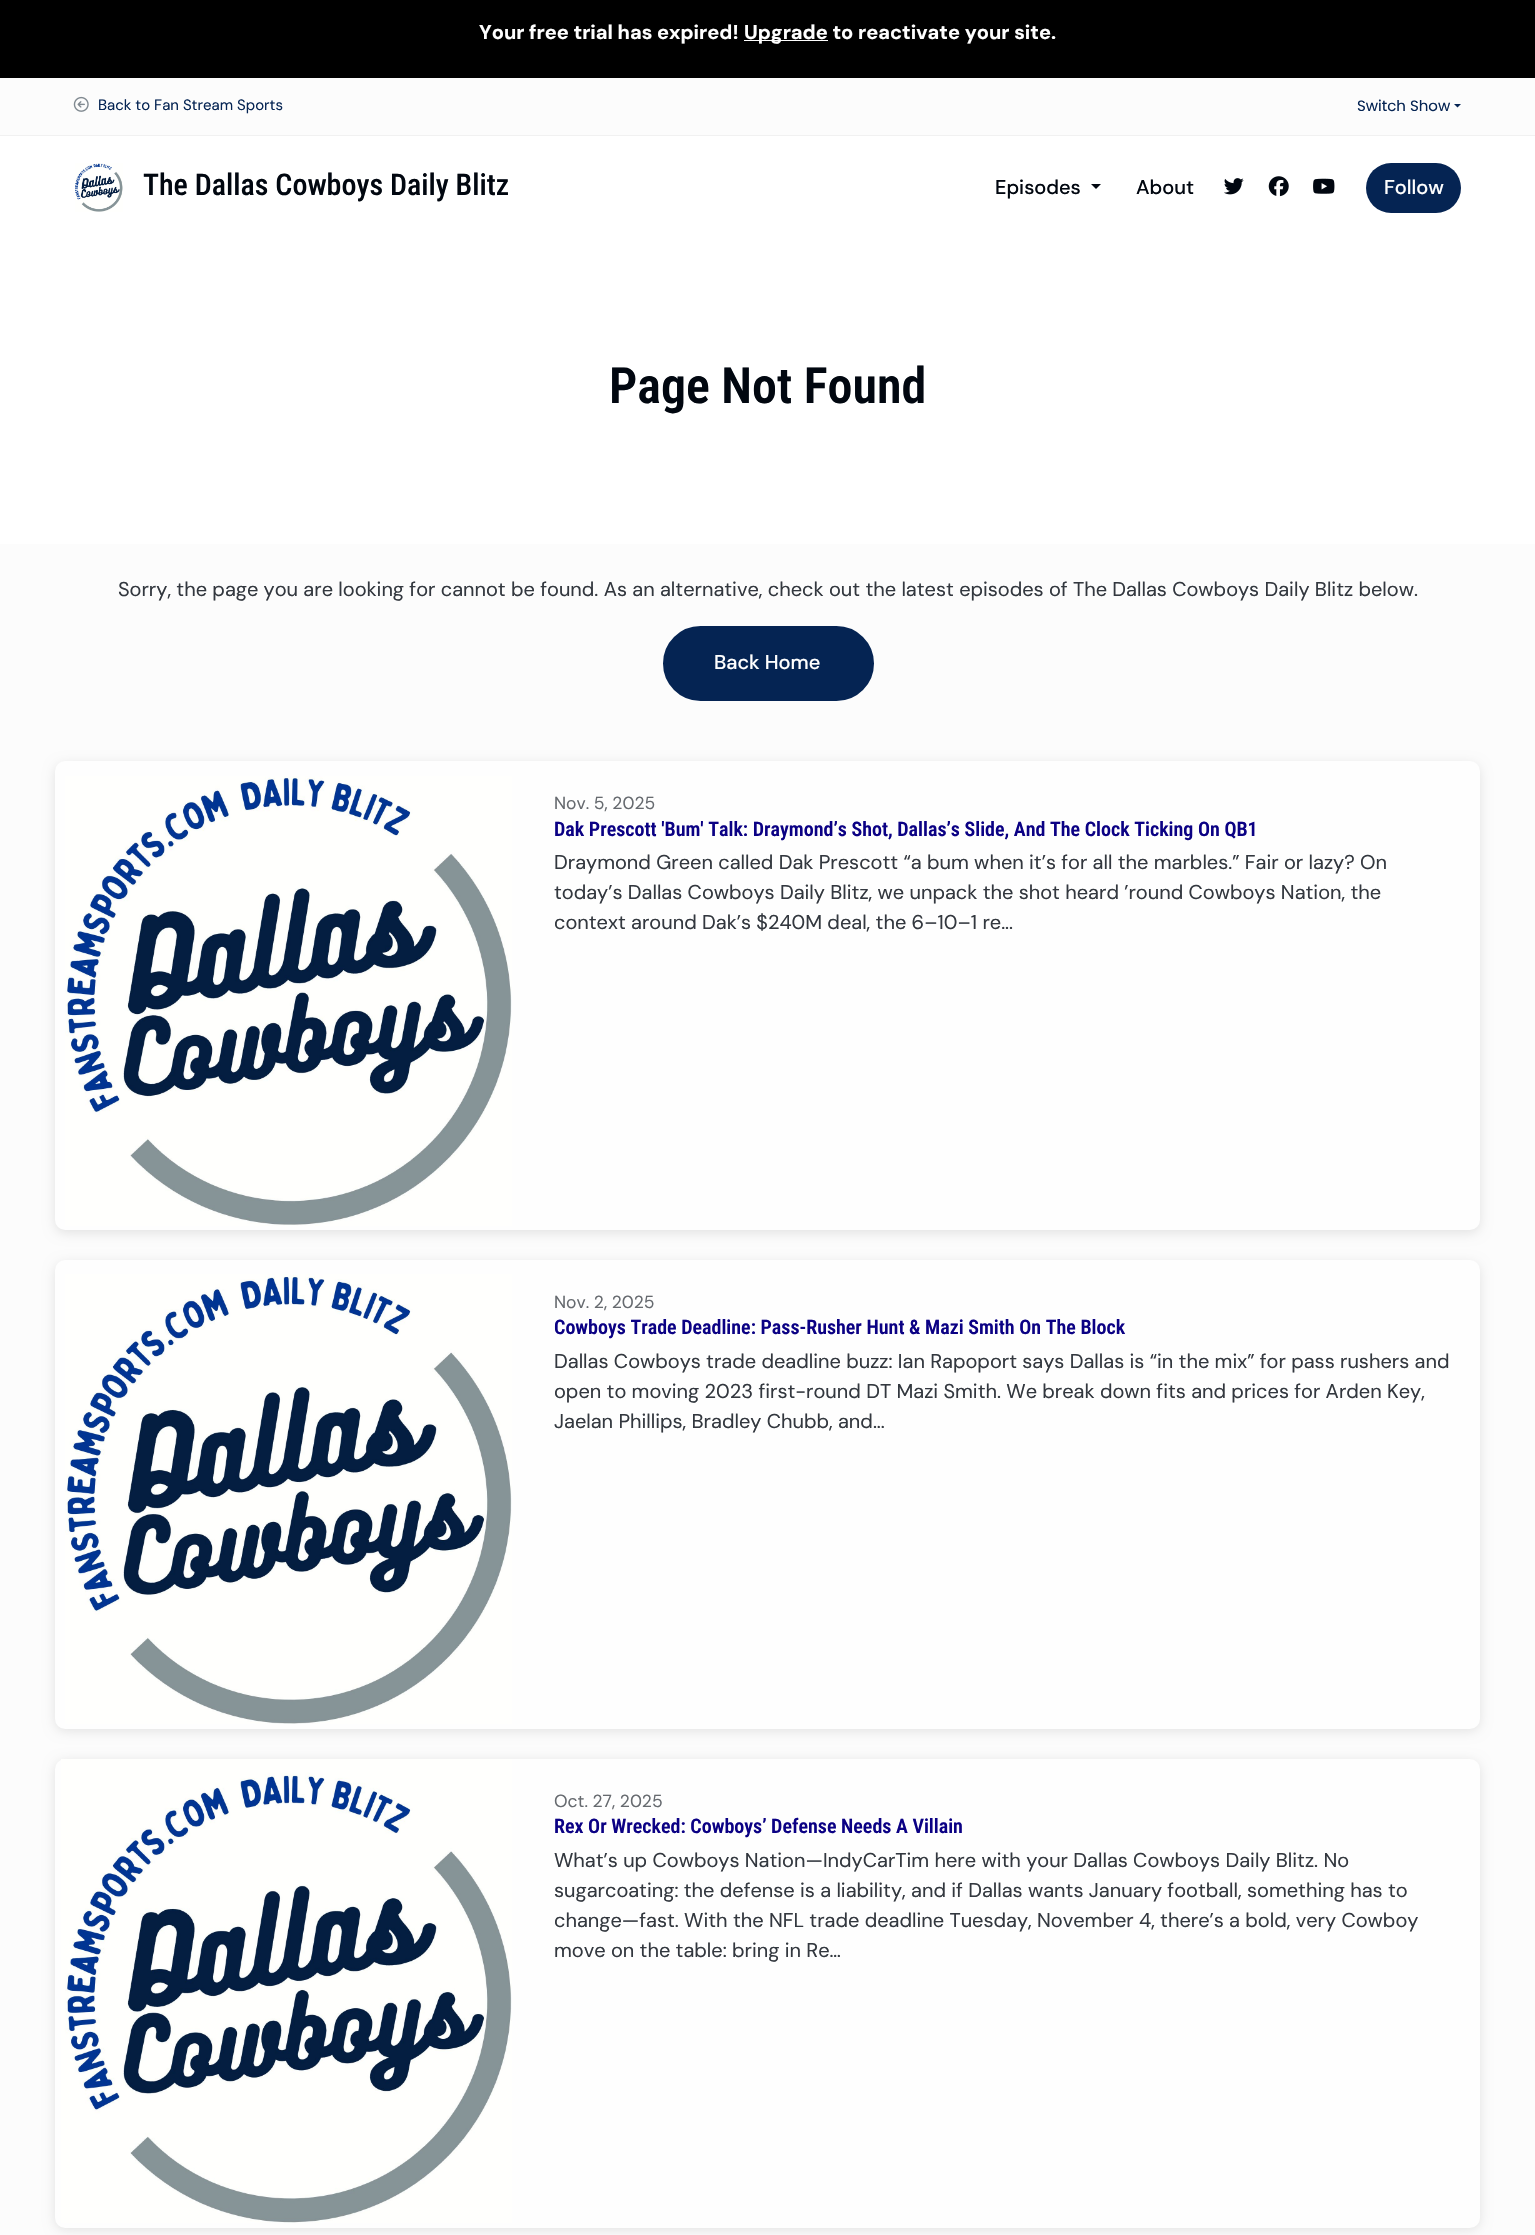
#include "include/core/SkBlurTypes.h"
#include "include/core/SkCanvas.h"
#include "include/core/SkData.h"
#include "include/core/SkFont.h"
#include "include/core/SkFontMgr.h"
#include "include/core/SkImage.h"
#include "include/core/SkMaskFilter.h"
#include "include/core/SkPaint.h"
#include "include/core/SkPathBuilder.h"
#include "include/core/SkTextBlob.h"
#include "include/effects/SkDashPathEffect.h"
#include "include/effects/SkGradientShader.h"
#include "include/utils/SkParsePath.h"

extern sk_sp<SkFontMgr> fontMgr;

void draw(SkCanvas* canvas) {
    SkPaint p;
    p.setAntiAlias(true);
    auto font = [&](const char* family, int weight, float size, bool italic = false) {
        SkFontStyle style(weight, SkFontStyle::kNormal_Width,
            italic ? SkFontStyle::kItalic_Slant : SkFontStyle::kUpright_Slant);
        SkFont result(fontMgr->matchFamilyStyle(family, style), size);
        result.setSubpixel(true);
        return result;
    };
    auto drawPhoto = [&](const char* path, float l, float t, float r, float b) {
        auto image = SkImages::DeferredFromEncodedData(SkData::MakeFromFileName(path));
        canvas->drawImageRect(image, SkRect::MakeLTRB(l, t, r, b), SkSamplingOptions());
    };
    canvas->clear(0xFFFCFCFC);
    p.setColor(0xFF000000);
    canvas->drawRect(SkRect::MakeLTRB(0, 0, 1535, 78), p);
    auto font1 = font("DM Sans", 700, 20);
    p.setColor(0xFFFFFFFF);
    canvas->drawString("Your free trial has expired!", 479, 39, font1, p);
    canvas->drawRect(SkRect::MakeLTRB(744, 40, 828, 41), p);
    canvas->drawString("Upgrade to reactivate your site.", 744, 39, font1, p);
    p.setColor(0xFFF1F1F1);
    canvas->drawRect(SkRect::MakeLTRB(0, 135, 1535, 136), p);
    drawPhoto("media/1.png", 73, 96, 89, 112);
    auto font2 = font("DM Sans", 400, 15);
    p.setColor(0xFF052453);
    canvas->drawString("Back to Fan Stream Sports", 98, 110, font2, p);
    auto font3 = font("Poppins", 400, 15);
    canvas->drawString("Switch Show", 1357, 111, font3, p);
    canvas->drawPath(SkPathBuilder().moveTo(1454, 104).lineTo(1461, 104).lineTo(1457.5f, 107.5f).close().detach(), p);
    p.setColor(0xFFFFFFFF);
    canvas->drawRect(SkRect::MakeLTRB(0, 136, 1535, 544), p);
    drawPhoto("media/2.png", 75, 163, 123, 212);
    auto font4 = font("Roboto Condensed", 500, 30);
    p.setColor(0xFF010710);
    canvas->drawString("The Dallas Cowboys Daily Blitz", 143, 195, font4, p);
    auto font5 = font("DM Sans", 500, 20);
    canvas->drawString("Episodes", 995, 194, font5, p);
    canvas->drawPath(SkPathBuilder().moveTo(1091, 184).lineTo(1101, 184).lineTo(1096, 189).close().detach(), p);
    canvas->drawString("About", 1136, 194, font5, p);
    drawPhoto("media/3.png", 1224, 178, 1244, 195);
    drawPhoto("media/4.png", 1268, 176, 1289, 197);
    drawPhoto("media/5.png", 1313, 178, 1335, 194);
    p.setColor(0xFF052453);
    canvas->drawRoundRect(SkRect::MakeLTRB(1366, 163, 1461, 213), 25, 25, p);
    p.setColor(0xFFFFFFFF);
    canvas->drawString("Follow", 1384, 194, font5, p);
    auto font6 = font("Roboto Condensed", 600, 50);
    p.setColor(0xFF010710);
    canvas->drawString("Page Not Found", 609, 403, font6, p);
    auto font7 = font("DM Sans", 400, 20);
    p.setColor(0xFF33383F);
    canvas->drawString("Sorry, the page you are looking for cannot be found. As an alternative, check out the latest episodes of The Dallas Cowboys Daily Blitz below.", 118, 596, font7, p);
    p.setColor(0xFF052453);
    canvas->drawRoundRect(SkRect::MakeLTRB(664.5f, 627.5f, 872.5f, 699.5f), 36, 36, p);
    p.setStyle(SkPaint::kStroke_Style);
    p.setStrokeWidth(3);
    canvas->drawRoundRect(SkRect::MakeLTRB(664.5f, 627.5f, 872.5f, 699.5f), 36, 36, p);
    p.setStyle(SkPaint::kFill_Style);
    p.setColor(0xFFFFFFFF);
    canvas->drawString("Back Home", 714, 669, font5, p);
    p.setColor(0x1A000000);
    p.setMaskFilter(SkMaskFilter::MakeBlur(kNormal_SkBlurStyle, 6));
    canvas->drawRoundRect(SkRect::MakeLTRB(55, 764, 1480, 1233), 10, 10, p);
    p.setMaskFilter(nullptr);
    p.setColor(0xFFFEFEFE);
    canvas->drawRoundRect(SkRect::MakeLTRB(55, 761, 1480, 1230), 10, 10, p);
    drawPhoto("media/6.png", 65, 776, 512, 1226);
    auto font8 = font("DM Sans", 400, 17.5f);
    p.setColor(0xFF666A6F);
    canvas->drawString("Nov. 5, 2025", 554, 809, font8, p);
    auto font9 = font("Roboto Condensed", 600, 20);
    p.setColor(0xFF0B0184);
    canvas->drawString("Dak Prescott 'Bum' Talk: Draymond’s Shot, Dallas’s Slide, And The Clock Ticking On QB1", 554, 836, font9, p);
    p.setColor(0xFF33383F);
    {
        const struct { const char* s; float x, y; } items[] = {
            {"Draymond Green called Dak Prescott “a bum when it’s for all the marbles.” Fair or lazy? On", 554, 869},
            {"today’s Dallas Cowboys Daily Blitz, we unpack the shot heard ’round Cowboys Nation, the", 554, 899},
            {"context around Dak’s $240M deal, the 6–10–1 re...", 554, 929},
        };
        for (auto [s, x, y] : items) {
            canvas->drawString(s, x, y, font7, p);
        }
    }
    p.setColor(0x1A000000);
    p.setMaskFilter(SkMaskFilter::MakeBlur(kNormal_SkBlurStyle, 6));
    canvas->drawRoundRect(SkRect::MakeLTRB(55, 1263, 1480, 1731), 10, 10, p);
    p.setMaskFilter(nullptr);
    p.setColor(0xFFFEFEFE);
    canvas->drawRoundRect(SkRect::MakeLTRB(55, 1260, 1480, 1729), 10, 10, p);
    drawPhoto("media/7.png", 65, 1274, 512, 1724);
    p.setColor(0xFF666A6F);
    canvas->drawString("Nov. 2, 2025", 554, 1308, font8, p);
    p.setColor(0xFF0B0184);
    canvas->drawString("Cowboys Trade Deadline: Pass-Rusher Hunt & Mazi Smith On The Block", 554, 1334, font9, p);
    p.setColor(0xFF33383F);
    {
        const struct { const char* s; float x, y; } items[] = {
            {"Dallas Cowboys trade deadline buzz: Ian Rapoport says Dallas is “in the mix” for pass rushers and", 554, 1368},
            {"open to moving 2023 first-round DT Mazi Smith. We break down fits and prices for Arden Key,", 554, 1398},
            {"Jaelan Phillips, Bradley Chubb, and...", 554, 1428},
        };
        for (auto [s, x, y] : items) {
            canvas->drawString(s, x, y, font7, p);
        }
    }
    p.setColor(0x1A000000);
    p.setMaskFilter(SkMaskFilter::MakeBlur(kNormal_SkBlurStyle, 6));
    canvas->drawRoundRect(SkRect::MakeLTRB(55, 1761, 1480, 2230), 10, 10, p);
    p.setMaskFilter(nullptr);
    p.setColor(0xFFFEFEFE);
    canvas->drawRoundRect(SkRect::MakeLTRB(55, 1759, 1480, 2228), 10, 10, p);
    drawPhoto("media/8.png", 61, 1759, 512, 2223);
    p.setColor(0xFF666A6F);
    canvas->drawString("Oct. 27, 2025", 554, 1807, font8, p);
    p.setColor(0xFF0B0184);
    canvas->drawString("Rex Or Wrecked: Cowboys’ Defense Needs A Villain", 554, 1833, font9, p);
    p.setColor(0xFF33383F);
    {
        const struct { const char* s; float x, y; } items[] = {
            {"What’s up Cowboys Nation—IndyCarTim here with your Dallas Cowboys Daily Blitz. No", 554, 1867},
            {"sugarcoating: the defense is a liability, and if Dallas wants January football, something has to", 554, 1897},
            {"change—fast. With the NFL trade deadline Tuesday, November 4, there’s a bold, very Cowboy", 554, 1927},
            {"move on the table: bring in Re…", 554, 1957},
        };
        for (auto [s, x, y] : items) {
            canvas->drawString(s, x, y, font7, p);
        }
    }
}
